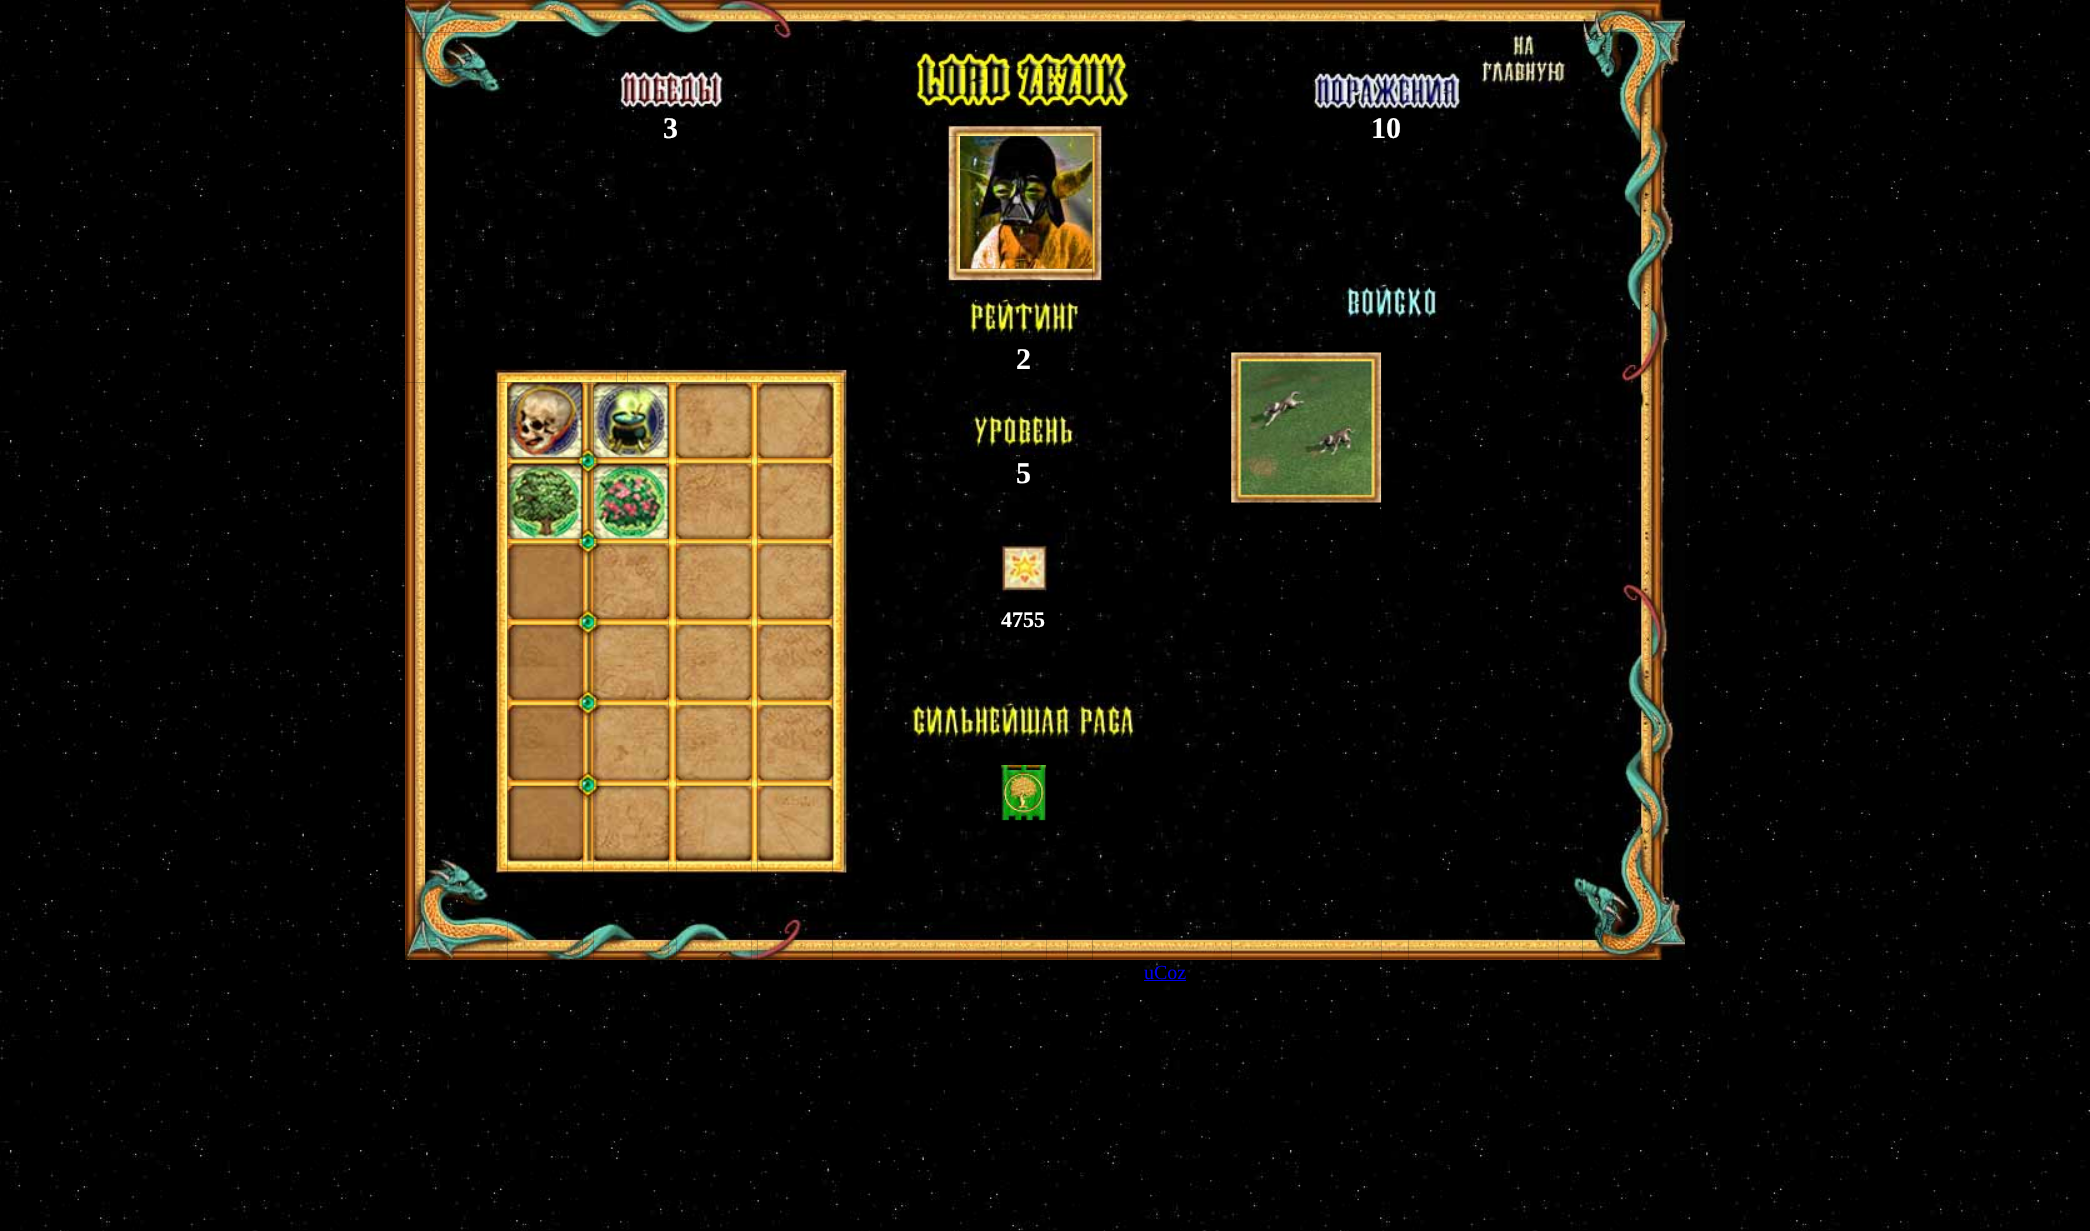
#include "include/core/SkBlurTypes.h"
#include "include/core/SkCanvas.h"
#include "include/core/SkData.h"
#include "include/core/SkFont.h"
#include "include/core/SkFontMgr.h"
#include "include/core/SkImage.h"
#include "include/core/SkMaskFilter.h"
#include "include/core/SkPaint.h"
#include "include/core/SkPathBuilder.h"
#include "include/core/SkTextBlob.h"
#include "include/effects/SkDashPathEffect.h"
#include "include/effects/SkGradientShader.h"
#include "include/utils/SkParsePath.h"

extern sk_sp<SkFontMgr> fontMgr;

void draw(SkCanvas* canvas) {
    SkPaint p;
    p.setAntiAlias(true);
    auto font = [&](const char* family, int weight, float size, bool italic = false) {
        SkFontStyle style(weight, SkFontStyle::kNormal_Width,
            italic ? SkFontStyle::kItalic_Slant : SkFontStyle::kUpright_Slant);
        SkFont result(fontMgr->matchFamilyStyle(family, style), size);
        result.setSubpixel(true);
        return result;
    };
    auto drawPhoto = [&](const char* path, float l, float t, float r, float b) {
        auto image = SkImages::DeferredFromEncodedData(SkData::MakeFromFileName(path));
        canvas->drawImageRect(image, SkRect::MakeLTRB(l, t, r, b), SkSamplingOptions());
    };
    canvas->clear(0xFFFFFFFF);
    drawPhoto("media/1.png", 0, 0, 2090, 1231);
    drawPhoto("media/2.png", 405, 0, 1685, 33);
    drawPhoto("media/3.png", 405, 32, 1470, 69);
    drawPhoto("media/4.png", 1470, 32, 1583, 89);
    drawPhoto("media/5.png", 1582, 32, 1685, 960);
    drawPhoto("media/6.png", 405, 68, 617, 383);
    drawPhoto("media/7.png", 616, 68, 726, 110);
    drawPhoto("media/8.png", 726, 68, 1300, 137);
    drawPhoto("media/9.png", 1302, 68, 1470, 110);
    drawPhoto("media/10.png", 1470, 88, 1583, 353);
    drawPhoto("media/11.png", 616, 126, 628, 383);
    auto font1 = font("Liberation Serif", 700, 30);
    p.setColor(0xFFFFFFFF);
    canvas->drawString("3", 663, 138, font1, p);
    drawPhoto("media/12.png", 715, 120, 727, 383);
    drawPhoto("media/13.png", 1302, 121, 1343, 350);
    canvas->drawString("10", 1371, 138, font1, p);
    drawPhoto("media/14.png", 1430, 112, 1470, 340);
    drawPhoto("media/15.png", 726, 136, 960, 383);
    drawPhoto("media/16.png", 960, 136, 1093, 269);
    drawPhoto("media/17.png", 1092, 136, 1303, 353);
    drawPhoto("media/18.png", 627, 148, 715, 383);
    drawPhoto("media/19.png", 1342, 147, 1430, 353);
    drawPhoto("media/20.png", 960, 268, 1093, 341);
    canvas->drawString("2", 1016, 369, font1, p);
    drawPhoto("media/21.png", 1067, 341, 1093, 960);
    drawPhoto("media/22.png", 960, 374, 980, 960);
    drawPhoto("media/23.png", 1092, 352, 1232, 960);
    drawPhoto("media/24.png", 1231, 352, 1382, 503);
    drawPhoto("media/25.png", 1381, 352, 1409, 960);
    drawPhoto("media/26.png", 1558, 352, 1583, 960);
    drawPhoto("media/27.png", 405, 382, 508, 960);
    drawPhoto("media/28.png", 507, 382, 583, 458);
    drawPhoto("media/29.png", 582, 382, 594, 960);
    drawPhoto("media/30.png", 593, 382, 669, 458);
    drawPhoto("media/31.png", 668, 382, 677, 960);
    drawPhoto("media/32.png", 676, 382, 752, 458);
    drawPhoto("media/33.png", 751, 382, 758, 960);
    drawPhoto("media/34.png", 757, 382, 833, 458);
    drawPhoto("media/35.png", 832, 382, 960, 960);
    drawPhoto("media/36.png", 980, 379, 1068, 455);
    drawPhoto("media/37.png", 507, 457, 583, 464);
    drawPhoto("media/38.png", 593, 457, 669, 464);
    drawPhoto("media/39.png", 676, 457, 752, 464);
    drawPhoto("media/40.png", 757, 457, 833, 464);
    drawPhoto("media/41.png", 507, 463, 583, 539);
    drawPhoto("media/42.png", 593, 463, 669, 539);
    drawPhoto("media/43.png", 676, 463, 752, 539);
    drawPhoto("media/44.png", 757, 463, 833, 539);
    canvas->drawString("5", 1016, 483, font1, p);
    drawPhoto("media/45.png", 507, 538, 583, 544);
    drawPhoto("media/46.png", 593, 538, 669, 544);
    drawPhoto("media/47.png", 676, 538, 752, 544);
    drawPhoto("media/48.png", 757, 538, 833, 544);
    drawPhoto("media/49.png", 980, 492, 1068, 600);
    drawPhoto("media/50.png", 507, 543, 583, 619);
    drawPhoto("media/51.png", 593, 543, 669, 619);
    drawPhoto("media/52.png", 676, 543, 752, 619);
    drawPhoto("media/53.png", 757, 543, 833, 619);
    auto font2 = font("Liberation Serif", 700, 22);
    canvas->drawString("4755", 1001, 627, font2, p);
    drawPhoto("media/54.png", 507, 618, 583, 625);
    drawPhoto("media/55.png", 593, 618, 669, 625);
    drawPhoto("media/56.png", 676, 618, 752, 625);
    drawPhoto("media/57.png", 757, 618, 833, 625);
    drawPhoto("media/58.png", 507, 625, 583, 700);
    drawPhoto("media/59.png", 593, 625, 669, 700);
    drawPhoto("media/60.png", 676, 625, 752, 700);
    drawPhoto("media/61.png", 757, 625, 833, 700);
    drawPhoto("media/62.png", 980, 638, 1068, 765);
    drawPhoto("media/63.png", 507, 700, 583, 705);
    drawPhoto("media/64.png", 593, 700, 669, 705);
    drawPhoto("media/65.png", 676, 700, 752, 705);
    drawPhoto("media/66.png", 757, 700, 833, 705);
    drawPhoto("media/67.png", 507, 705, 583, 780);
    drawPhoto("media/68.png", 593, 705, 669, 780);
    drawPhoto("media/69.png", 676, 705, 752, 780);
    drawPhoto("media/70.png", 757, 705, 833, 780);
    drawPhoto("media/71.png", 507, 780, 583, 787);
    drawPhoto("media/72.png", 593, 780, 669, 787);
    drawPhoto("media/73.png", 676, 780, 752, 787);
    drawPhoto("media/74.png", 757, 780, 833, 787);
    drawPhoto("media/75.png", 980, 765, 1002, 960);
    drawPhoto("media/76.png", 1001, 765, 1047, 821);
    drawPhoto("media/77.png", 1046, 765, 1068, 960);
    drawPhoto("media/78.png", 507, 786, 583, 862);
    drawPhoto("media/79.png", 593, 786, 669, 862);
    drawPhoto("media/80.png", 676, 786, 752, 862);
    drawPhoto("media/81.png", 757, 786, 833, 862);
    drawPhoto("media/82.png", 1001, 823, 1047, 960);
    drawPhoto("media/83.png", 507, 861, 583, 960);
    drawPhoto("media/84.png", 593, 861, 669, 960);
    drawPhoto("media/85.png", 676, 861, 752, 960);
    drawPhoto("media/86.png", 757, 861, 833, 960);
    drawPhoto("media/87.png", 1231, 918, 1382, 960);
    drawPhoto("media/88.png", 1408, 918, 1559, 960);
    auto font3 = font("Liberation Serif", 400, 20);
    p.setColor(0xFF0000EE);
    canvas->drawString("uCoz", 1144, 979, font3, p);
    canvas->drawRect(SkRect::MakeLTRB(1144, 980, 1186, 981), p);
}
